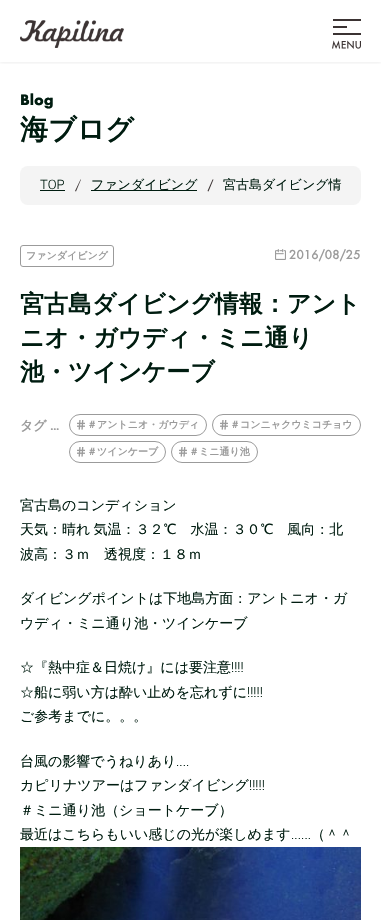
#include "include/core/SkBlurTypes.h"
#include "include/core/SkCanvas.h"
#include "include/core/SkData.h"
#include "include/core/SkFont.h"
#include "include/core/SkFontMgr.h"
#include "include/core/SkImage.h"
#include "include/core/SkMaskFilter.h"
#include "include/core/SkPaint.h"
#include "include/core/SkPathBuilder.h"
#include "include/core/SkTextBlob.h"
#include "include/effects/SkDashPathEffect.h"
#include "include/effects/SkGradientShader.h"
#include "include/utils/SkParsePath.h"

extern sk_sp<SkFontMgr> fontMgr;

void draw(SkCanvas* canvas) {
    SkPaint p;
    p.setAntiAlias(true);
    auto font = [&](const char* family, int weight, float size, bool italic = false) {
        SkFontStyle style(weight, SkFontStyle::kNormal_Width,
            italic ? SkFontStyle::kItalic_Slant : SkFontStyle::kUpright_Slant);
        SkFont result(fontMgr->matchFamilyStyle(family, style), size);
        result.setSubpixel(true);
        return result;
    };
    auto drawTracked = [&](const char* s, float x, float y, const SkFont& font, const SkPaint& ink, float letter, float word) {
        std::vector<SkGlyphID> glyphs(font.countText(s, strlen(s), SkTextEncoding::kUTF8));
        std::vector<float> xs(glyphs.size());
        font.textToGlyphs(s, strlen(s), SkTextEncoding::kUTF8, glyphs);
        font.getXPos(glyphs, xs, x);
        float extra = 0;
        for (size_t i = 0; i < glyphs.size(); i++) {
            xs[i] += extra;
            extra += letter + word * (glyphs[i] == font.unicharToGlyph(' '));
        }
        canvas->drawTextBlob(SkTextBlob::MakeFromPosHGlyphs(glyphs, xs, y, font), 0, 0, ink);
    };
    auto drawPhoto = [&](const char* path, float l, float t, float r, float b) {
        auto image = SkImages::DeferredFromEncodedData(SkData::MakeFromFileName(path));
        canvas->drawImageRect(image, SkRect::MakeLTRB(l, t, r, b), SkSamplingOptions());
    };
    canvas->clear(0xFFFFFFFF);
    canvas->save();
    canvas->clipRect(SkRect::MakeLTRB(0, 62, 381, 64));
    p.setColor(0x1A000000);
    p.setMaskFilter(SkMaskFilter::MakeBlur(kNormal_SkBlurStyle, 2));
    canvas->drawRect(SkRect::MakeLTRB(0, 0, 381, 62), p);
    p.setMaskFilter(nullptr);
    canvas->restore();
    drawPhoto("media/1.png", 20, 20, 124, 48);
    drawPhoto("media/2.png", 332, 19, 361, 49);
    auto font1 = font("Futura", 700, 14);
    p.setColor(0xFF001C10);
    canvas->drawString("Blog", 20, 105, font1, p);
    auto font2 = font("WenQuanYi Zen Hei", 700, 28);
    canvas->drawString("海ブログ", 20, 139, font2, p);
    p.setColor(0xFFF4F4F4);
    canvas->drawRoundRect(SkRect::MakeLTRB(20, 166, 361, 205), 8, 8, p);
    auto font3 = font("Roboto", 300, 13);
    p.setColor(0xFF001C10);
    canvas->drawString("TOP", 40, 189, font3, p);
    canvas->drawRect(SkRect::MakeLTRB(40, 190, 65, 191), p);
    p.setColor(0xFF3B3333);
    canvas->drawPath(SkPathBuilder().moveTo(80.5f, 179.5f).lineTo(81, 179.5f).lineTo(76, 191.5f).lineTo(75, 191).close().detach(), p);
    p.setColor(0xFF001C10);
    canvas->drawRect(SkRect::MakeLTRB(91, 190, 197, 191), p);
    auto font4 = font("WenQuanYi Zen Hei", 500, 13);
    canvas->drawString("ファンダイビング", 91, 189, font4, p);
    p.setColor(0xFF3B3333);
    canvas->drawPath(SkPathBuilder().moveTo(212.5f, 179.5f).lineTo(213.5f, 179.5f).lineTo(208.5f, 191.5f).lineTo(207.5f, 191).close().detach(), p);
    p.setColor(0xFF001C10);
    canvas->drawString("宮古島ダイビング情", 223, 189, font4, p);
    p.setStyle(SkPaint::kStroke_Style);
    p.setStrokeWidth(1);
    p.setColor(0xFF9B9B9B);
    canvas->drawRoundRect(SkRect::MakeLTRB(20.5f, 245.5f, 113.5f, 266.5f), 2.5f, 2.5f, p);
    auto font5 = font("WenQuanYi Zen Hei", 700, 10);
    p.setStyle(SkPaint::kFill_Style);
    canvas->drawString("ファンダイビング", 26, 259, font5, p);
    drawPhoto("media/3.png", 275, 249, 286, 260);
    auto font6 = font("Futura", 500, 12);
    canvas->drawString("2016/08/25", 289, 259, font6, p);
    auto font7 = font("WenQuanYi Zen Hei", 700, 24);
    p.setColor(0xFF001C10);
    {
        const struct { const char* s; float x, y; } items[] = {
            {"宮古島ダイビング情報：アント", 20, 312},
            {"ニオ・ガウディ・ミニ通り", 20, 346},
            {"池・ツインケーブ", 20, 380},
        };
        for (auto [s, x, y] : items) {
            canvas->drawString(s, x, y, font7, p);
        }
    }
    auto font8 = font("WenQuanYi Zen Hei", 700, 13);
    p.setColor(0xFF9B9B9B);
    canvas->drawString("タグ", 20, 430, font8, p);
    auto font9 = font("Roboto", 600, 13);
    canvas->drawString("…", 50, 430, font9, p);
    p.setStyle(SkPaint::kStroke_Style);
    canvas->drawRoundRect(SkRect::MakeLTRB(69.5f, 414.5f, 206.5f, 435.5f), 10.5f, 10.5f, p);
    drawPhoto("media/4.png", 77, 420, 85, 430);
    p.setStyle(SkPaint::kFill_Style);
    canvas->drawString("＃アントニオ・ガウディ", 87, 428, font5, p);
    p.setStyle(SkPaint::kStroke_Style);
    canvas->drawRoundRect(SkRect::MakeLTRB(212.5f, 414.5f, 360.5f, 435.5f), 10.5f, 10.5f, p);
    drawPhoto("media/4.png", 220, 420, 228, 430);
    p.setStyle(SkPaint::kFill_Style);
    canvas->drawString("＃コンニャクウミコチョウ", 230, 428, font5, p);
    p.setStyle(SkPaint::kStroke_Style);
    canvas->drawRoundRect(SkRect::MakeLTRB(69.5f, 441.5f, 165.5f, 462.5f), 10.5f, 10.5f, p);
    drawPhoto("media/4.png", 77, 447, 85, 457);
    p.setStyle(SkPaint::kFill_Style);
    canvas->drawString("＃ツインケーブ", 87, 455, font5, p);
    p.setStyle(SkPaint::kStroke_Style);
    canvas->drawRoundRect(SkRect::MakeLTRB(171.5f, 441.5f, 257.5f, 462.5f), 10.5f, 10.5f, p);
    drawPhoto("media/4.png", 179, 447, 187, 457);
    p.setStyle(SkPaint::kFill_Style);
    canvas->drawString("＃ミニ通り池", 189, 455, font5, p);
    auto font10 = font("WenQuanYi Zen Hei", 500, 14);
    p.setColor(0xFF001C10);
    canvas->drawString("宮古島のコンディション", 20, 510, font10, p);
    drawTracked("天気：晴れ 気温：３２℃　水温：３０℃　風向：北", 20, 534, font10, p, 0, -1);
    {
        const struct { const char* s; float x, y; } items[] = {
            {"波高：３ｍ　透視度：１８ｍ", 20, 559},
            {"ダイビングポイントは下地島方面：アントニオ・ガ", 20, 603},
            {"ウディ・ミニ通り池・ツインケーブ", 20, 628},
            {"☆『熱中症＆日焼け』には要注意", 20, 672},
        };
        for (auto [s, x, y] : items) {
            canvas->drawString(s, x, y, font10, p);
        }
    }
    auto font11 = font("Roboto", 300, 14);
    canvas->drawString("!!!!", 231, 672, font11, p);
    canvas->drawString("☆船に弱い方は酔い止めを忘れずに", 20, 697, font10, p);
    canvas->drawString("!!!!!", 247, 697, font11, p);
    canvas->drawString("ご参考までに。。。", 20, 721, font10, p);
    canvas->drawString("台風の影響でうねりあり", 20, 766, font10, p);
    canvas->drawString("....", 176, 766, font11, p);
    canvas->drawString("カピリナツアーはファンダイビング", 20, 790, font10, p);
    canvas->drawString("!!!!!", 249, 790, font11, p);
    canvas->drawString("＃ミニ通り池（ショートケーブ）", 20, 815, font10, p);
    canvas->drawString("最近はこちらもいい感じの光が楽しめます", 20, 839, font10, p);
    canvas->drawString("......", 291, 839, font11, p);
    canvas->drawString("（＾＾", 311, 839, font10, p);
    drawPhoto("media/5.png", 20, 847, 361, 920);
}
